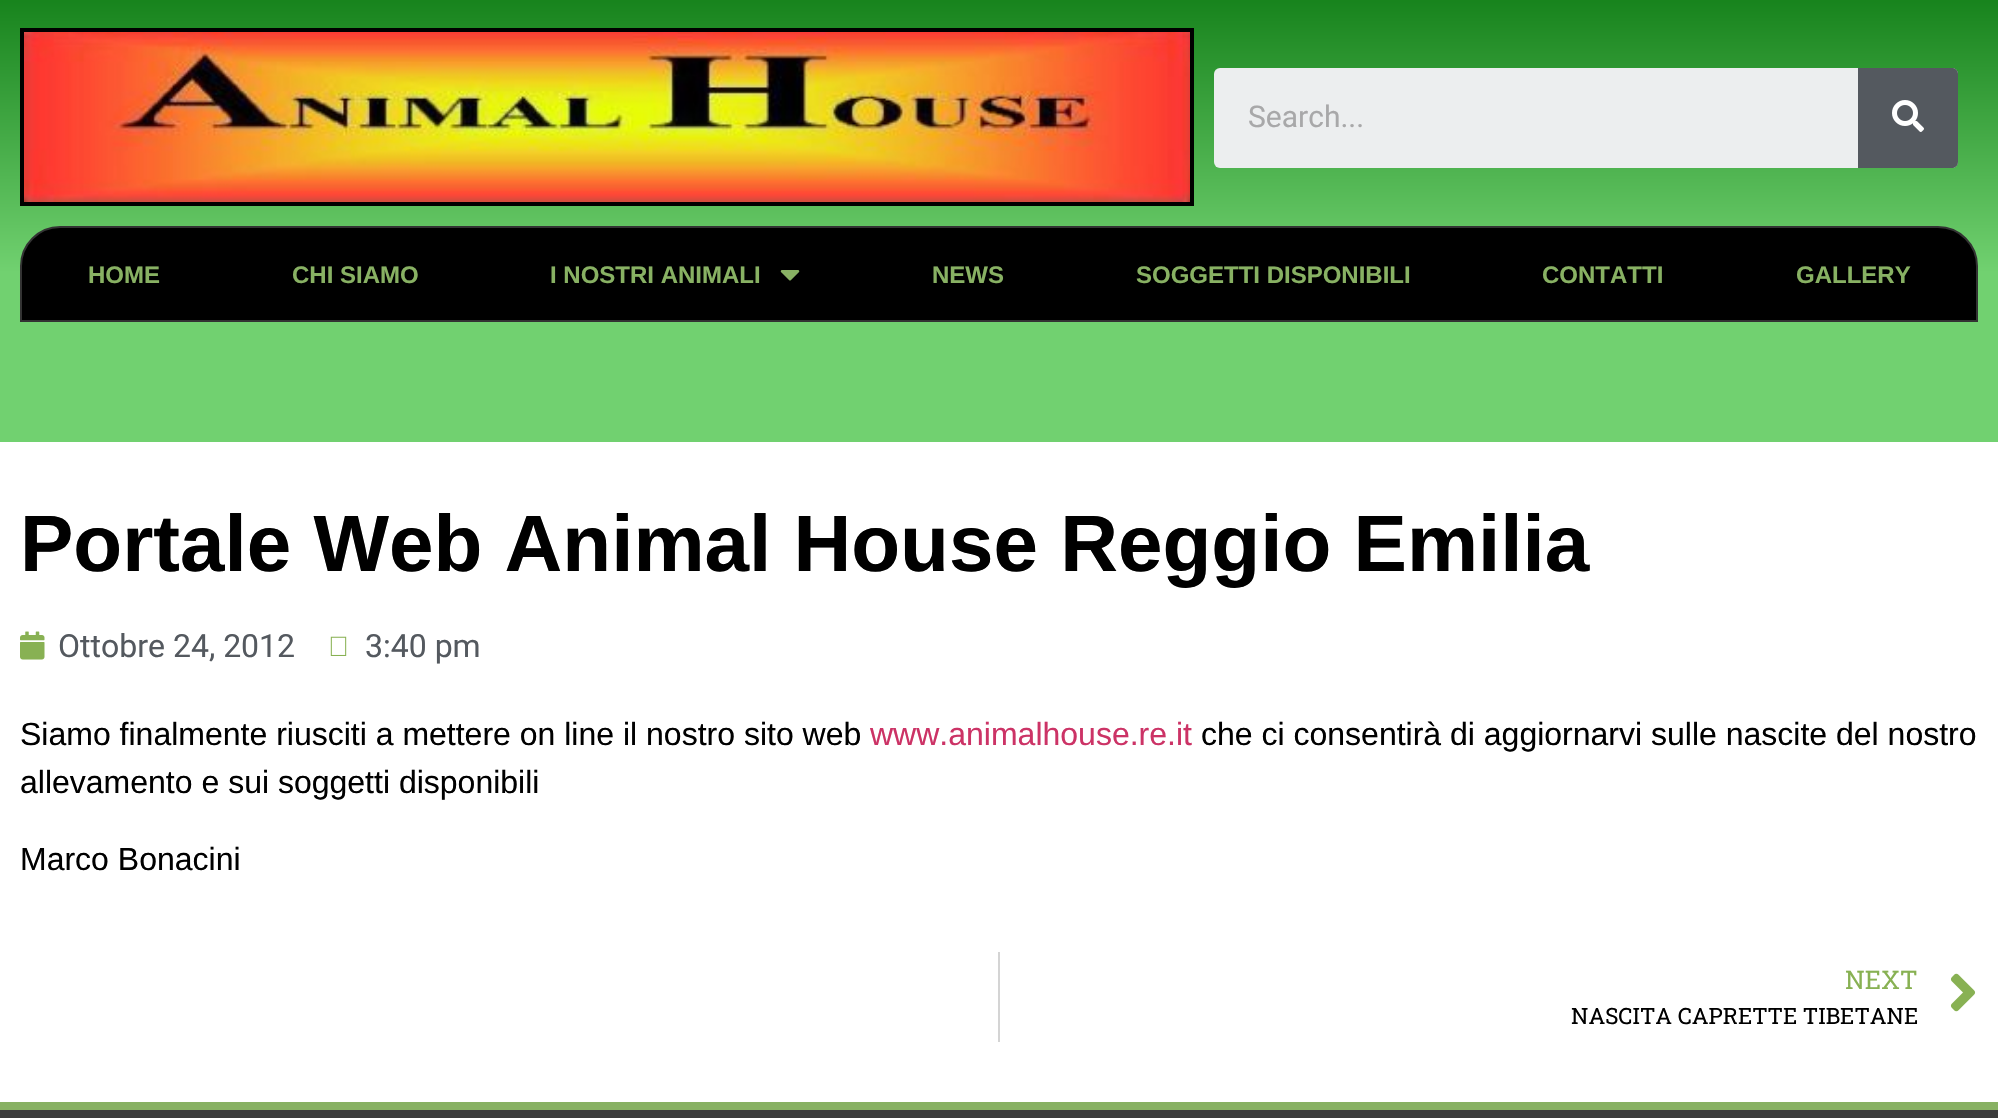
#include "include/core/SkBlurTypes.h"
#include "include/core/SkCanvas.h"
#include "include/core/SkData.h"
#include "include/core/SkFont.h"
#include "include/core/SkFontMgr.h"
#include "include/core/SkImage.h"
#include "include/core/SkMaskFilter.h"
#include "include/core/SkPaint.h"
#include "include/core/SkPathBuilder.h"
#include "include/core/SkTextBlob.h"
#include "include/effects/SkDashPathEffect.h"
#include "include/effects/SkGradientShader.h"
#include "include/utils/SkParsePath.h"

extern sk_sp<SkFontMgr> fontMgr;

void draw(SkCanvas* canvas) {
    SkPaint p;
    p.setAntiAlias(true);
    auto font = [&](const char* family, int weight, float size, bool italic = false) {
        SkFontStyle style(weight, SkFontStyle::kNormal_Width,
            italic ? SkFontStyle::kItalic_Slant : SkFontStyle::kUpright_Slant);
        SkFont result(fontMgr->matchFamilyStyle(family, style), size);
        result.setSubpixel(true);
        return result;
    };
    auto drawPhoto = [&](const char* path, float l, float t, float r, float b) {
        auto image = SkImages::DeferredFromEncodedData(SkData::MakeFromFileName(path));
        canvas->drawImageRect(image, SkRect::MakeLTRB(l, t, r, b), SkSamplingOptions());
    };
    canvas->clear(0xFFFFFFFF);
    {
        const SkColor colors[] = {0xFF006F07, 0xFF71D170};
        const float stops[] = {0, 0.67f};
        const SkPoint ends[] = {{999, -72}, {999, 442}};
        p.setShader(SkGradientShader::MakeLinear(ends, colors, stops, 2, SkTileMode::kClamp));
        p.setAlpha(255);
    }
    canvas->drawRect(SkRect::MakeLTRB(0, 0, 1998, 442), p);
    p.setStyle(SkPaint::kStroke_Style);
    p.setStrokeWidth(4);
    p.setShader(nullptr);
    p.setColor(0xFF000000);
    canvas->drawRect(SkRect::MakeLTRB(22, 30, 1192, 204), p);
    drawPhoto("media/1.png", 24, 32, 1190, 202);
    p.setStyle(SkPaint::kFill_Style);
    p.setColor(0xFFECEEEF);
    canvas->drawRoundRect(SkRect::MakeLTRB(1214, 68, 1958, 168), 6, 6, p);
    auto font1 = font("Roboto", 400, 30);
    p.setColor(0xFFA8A8A9);
    canvas->drawString("Search...", 1248, 127, font1, p);
    p.setColor(0xFF54595F);
    canvas->drawPath(SkPathBuilder().moveTo(1858, 68).lineTo(1952, 68).cubicTo(1955.5f, 68, 1958, 70.5f, 1958, 74).lineTo(1958, 162).cubicTo(1958, 165.5f, 1955.5f, 168, 1952, 168).lineTo(1858, 168).close().detach(), p);
    drawPhoto("media/2.png", 1892, 100, 1924, 132);
    p.setColor(0xFF000000);
    canvas->drawPath(SkPathBuilder().moveTo(60, 227).lineTo(1938, 227).cubicTo(1959.5f, 227, 1977, 244.5f, 1977, 266).lineTo(1977, 321).lineTo(21, 321).lineTo(21, 266).cubicTo(21, 244.5f, 38.5f, 227, 60, 227).close().detach(), p);
    p.setStyle(SkPaint::kStroke_Style);
    p.setStrokeWidth(2);
    p.setColor(0xFF333333);
    canvas->drawPath(SkPathBuilder().moveTo(60, 227).lineTo(1938, 227).cubicTo(1959.5f, 227, 1977, 244.5f, 1977, 266).lineTo(1977, 321).lineTo(21, 321).lineTo(21, 266).cubicTo(21, 244.5f, 38.5f, 227, 60, 227).close().detach(), p);
    auto font2 = font("Liberation Sans", 700, 24);
    p.setStyle(SkPaint::kFill_Style);
    p.setColor(0xFF88B163);
    {
        const struct { const char* s; float x, y; } items[] = {
            {"HOME", 88, 283},
            {"CHI SIAMO", 292, 283},
            {"I NOSTRI ANIMALI", 550, 283},
        };
        for (auto [s, x, y] : items) {
            canvas->drawString(s, x, y, font2, p);
        }
    }
    drawPhoto("media/3.png", 780, 270, 800, 281);
    {
        const struct { const char* s; float x, y; } items[] = {
            {"NEWS", 932, 283},
            {"SOGGETTI DISPONIBILI", 1136, 283},
            {"CONTATTI", 1542, 283},
            {"GALLERY", 1796, 283},
        };
        for (auto [s, x, y] : items) {
            canvas->drawString(s, x, y, font2, p);
        }
    }
    auto font3 = font("Liberation Sans", 700, 80);
    p.setColor(0xFF000000);
    canvas->drawString("Portale Web Animal House Reggio Emilia", 20, 571, font3, p);
    drawPhoto("media/4.png", 20, 631, 45, 660);
    auto font4 = font("Roboto", 400, 32);
    p.setColor(0xFF54595F);
    canvas->drawString("Ottobre 24, 2012", 58, 657, font4, p);
    drawPhoto("media/5.png", 330, 636, 347, 656);
    canvas->drawString("3:40 pm", 365, 657, font4, p);
    auto font5 = font("Liberation Sans", 400, 32);
    p.setColor(0xFF000000);
    canvas->drawString("Siamo finalmente riusciti a mettere on line il nostro sito web", 20, 745, font5, p);
    p.setColor(0xFFCC3366);
    canvas->drawString("www.animalhouse.re.it", 870, 745, font5, p);
    p.setColor(0xFF000000);
    {
        const struct { const char* s; float x, y; } items[] = {
            {"che ci consentirà di aggiornarvi sulle nascite del nostro", 1201, 745},
            {"allevamento e sui soggetti disponibili", 20, 793},
            {"Marco Bonacini", 20, 870},
        };
        for (auto [s, x, y] : items) {
            canvas->drawString(s, x, y, font5, p);
        }
    }
    p.setColor(0xFFD4D4D4);
    canvas->drawRect(SkRect::MakeLTRB(998, 952, 1000, 1042), p);
    auto font6 = font("Roboto Slab", 400, 25.5f);
    p.setColor(0xFF88B153);
    canvas->drawString("NEXT", 1845, 989, font6, p);
    auto font7 = font("Roboto Slab", 400, 22.4f);
    p.setColor(0xFF000000);
    canvas->drawString("NASCITA CAPRETTE TIBETANE", 1571, 1024, font7, p);
    drawPhoto("media/6.png", 1950, 973, 1976, 1012);
    p.setColor(0xFF3C3C3C);
    canvas->drawRect(SkRect::MakeLTRB(0, 1110, 1998, 1118), p);
    p.setColor(0xFF88B163);
    canvas->drawRect(SkRect::MakeLTRB(0, 1102, 1998, 1110), p);
}
